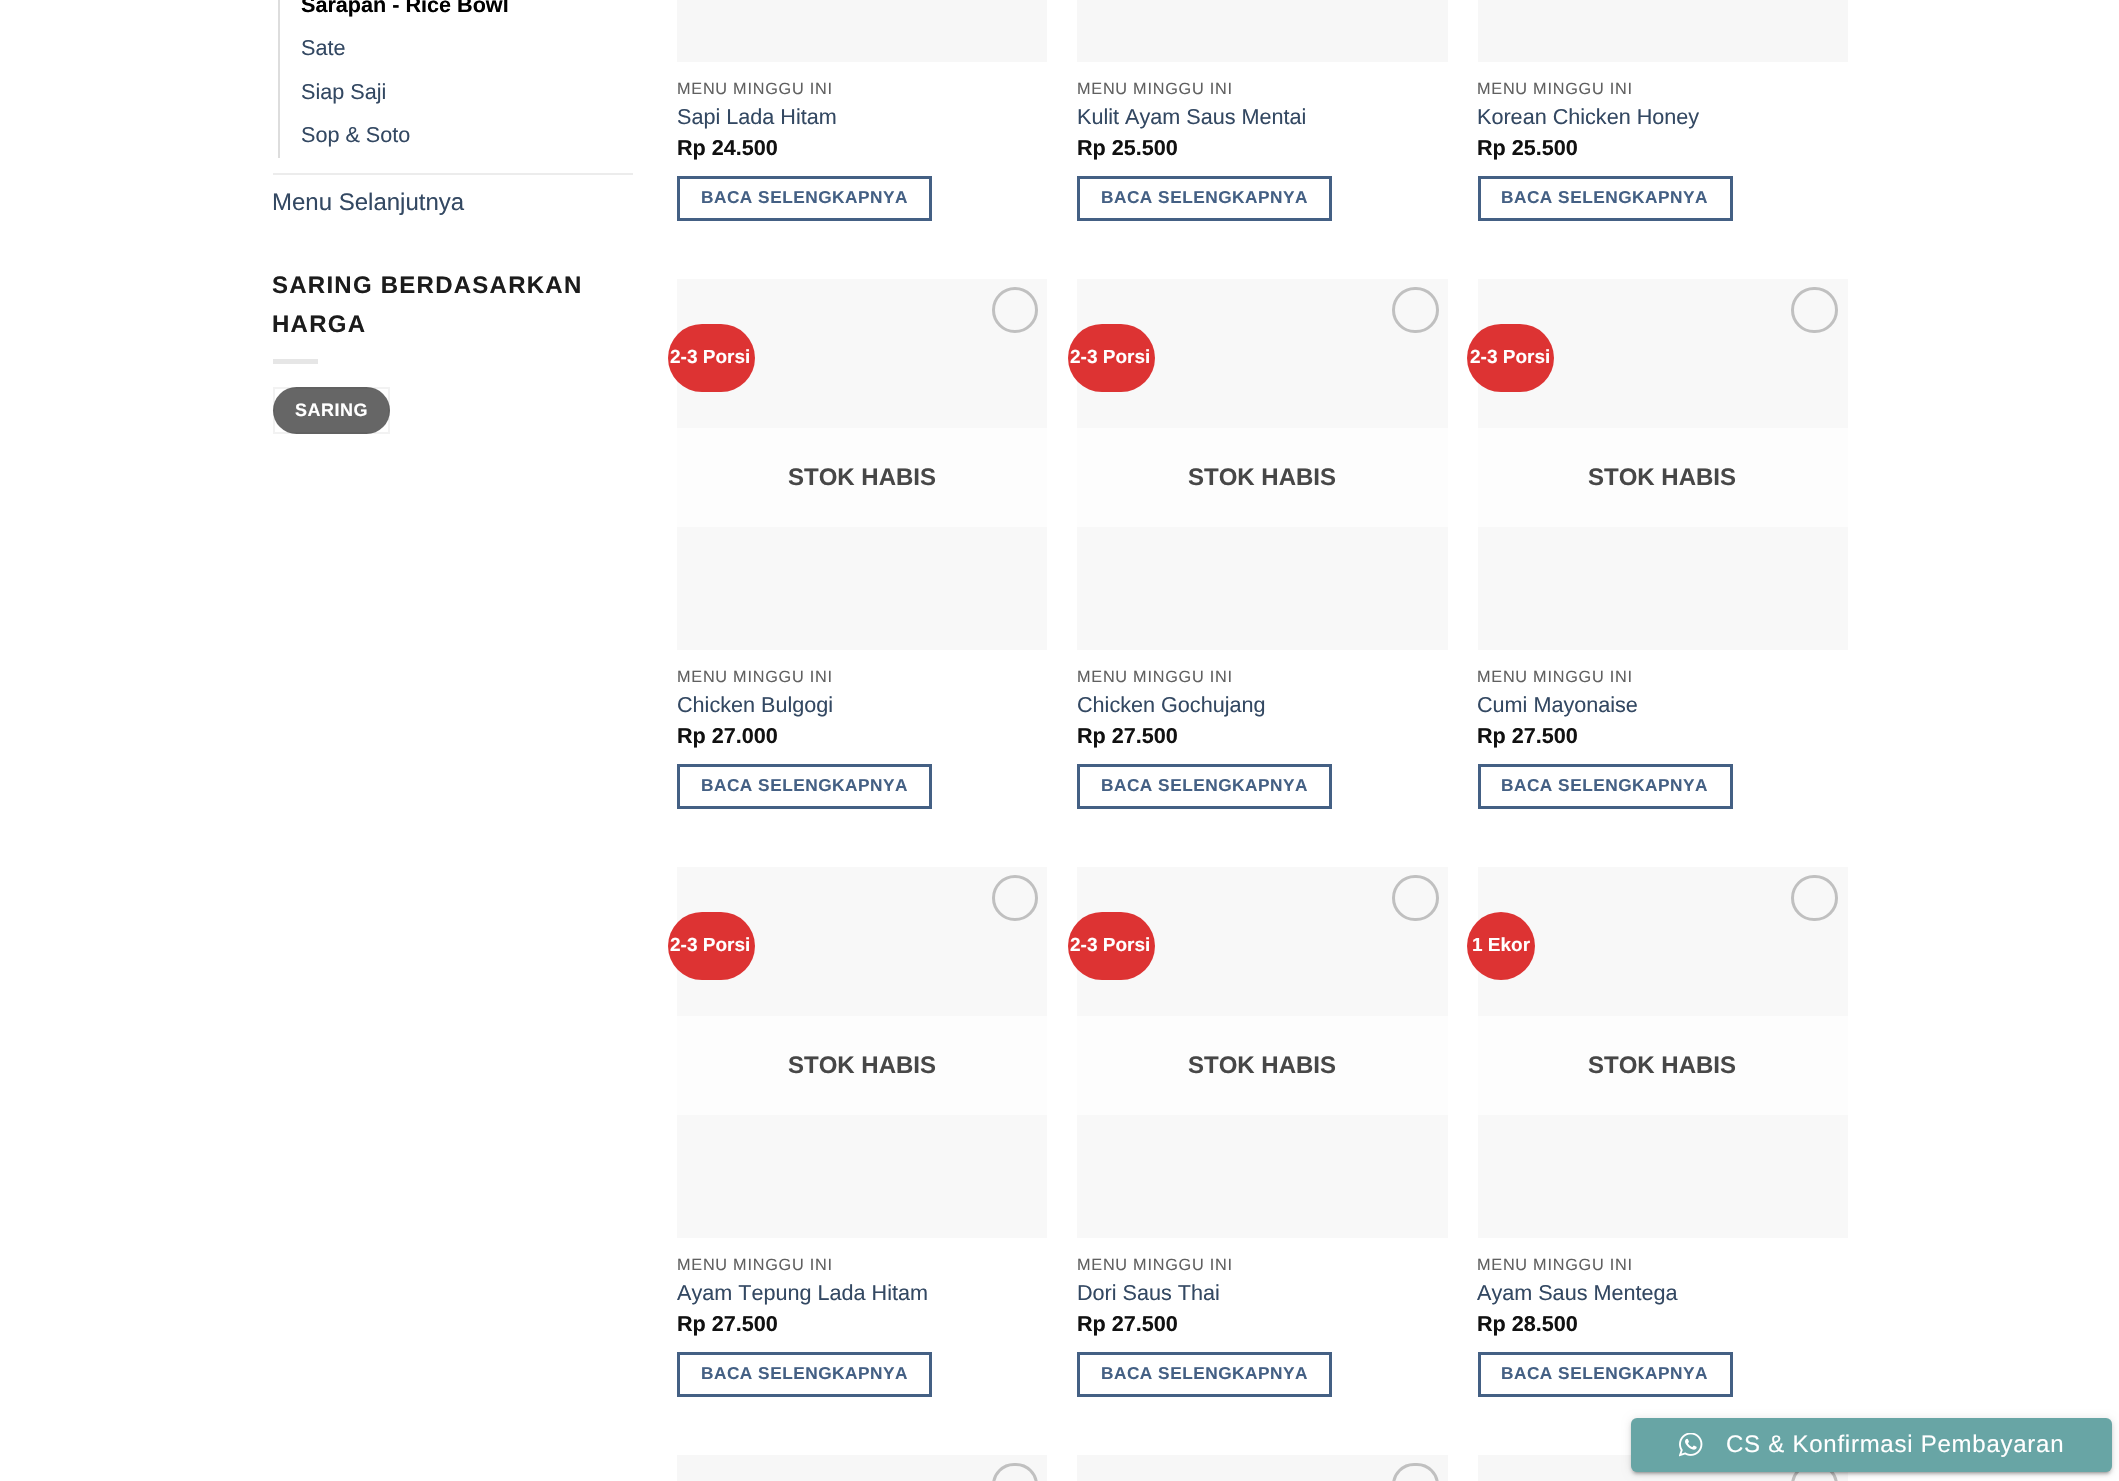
#include "include/core/SkBlurTypes.h"
#include "include/core/SkCanvas.h"
#include "include/core/SkData.h"
#include "include/core/SkFont.h"
#include "include/core/SkFontMgr.h"
#include "include/core/SkImage.h"
#include "include/core/SkMaskFilter.h"
#include "include/core/SkPaint.h"
#include "include/core/SkPathBuilder.h"
#include "include/core/SkTextBlob.h"
#include "include/effects/SkDashPathEffect.h"
#include "include/effects/SkGradientShader.h"
#include "include/utils/SkParsePath.h"

extern sk_sp<SkFontMgr> fontMgr;

void draw(SkCanvas* canvas) {
    SkPaint p;
    p.setAntiAlias(true);
    auto font = [&](const char* family, int weight, float size, bool italic = false) {
        SkFontStyle style(weight, SkFontStyle::kNormal_Width,
            italic ? SkFontStyle::kItalic_Slant : SkFontStyle::kUpright_Slant);
        SkFont result(fontMgr->matchFamilyStyle(family, style), size);
        result.setSubpixel(true);
        return result;
    };
    auto drawTracked = [&](const char* s, float x, float y, const SkFont& font, const SkPaint& ink, float letter, float word) {
        std::vector<SkGlyphID> glyphs(font.countText(s, strlen(s), SkTextEncoding::kUTF8));
        std::vector<float> xs(glyphs.size());
        font.textToGlyphs(s, strlen(s), SkTextEncoding::kUTF8, glyphs);
        font.getXPos(glyphs, xs, x);
        float extra = 0;
        for (size_t i = 0; i < glyphs.size(); i++) {
            xs[i] += extra;
            extra += letter + word * (glyphs[i] == font.unicharToGlyph(' '));
        }
        canvas->drawTextBlob(SkTextBlob::MakeFromPosHGlyphs(glyphs, xs, y, font), 0, 0, ink);
    };
    auto drawPhoto = [&](const char* path, float l, float t, float r, float b) {
        auto image = SkImages::DeferredFromEncodedData(SkData::MakeFromFileName(path));
        canvas->drawImageRect(image, SkRect::MakeLTRB(l, t, r, b), SkSamplingOptions());
    };
    canvas->clear(0xFFFFFFFF);
    p.setColor(0xFFDDDDDD);
    canvas->drawRect(SkRect::MakeLTRB(278, 0, 280, 158), p);
    auto font1 = font("Liberation Sans", 700, 21.6f);
    p.setColor(0xFF000000);
    canvas->drawString("Sarapan - Rice Bowl", 301, 12, font1, p);
    auto font2 = font("Liberation Sans", 400, 21.6f);
    p.setColor(0xFF334862);
    {
        const struct { const char* s; float x, y; } items[] = {
            {"Sate", 301, 55},
            {"Siap Saji", 301, 99},
            {"Sop & Soto", 301, 142},
        };
        for (auto [s, x, y] : items) {
            canvas->drawString(s, x, y, font2, p);
        }
    }
    p.setColor(0xFFECECEC);
    canvas->drawRect(SkRect::MakeLTRB(273, 173, 633, 175), p);
    auto font3 = font("Liberation Sans", 400, 24);
    p.setColor(0xFF334862);
    canvas->drawString("Menu Selanjutnya", 272, 210, font3, p);
    auto font4 = font("Liberation Sans", 700, 24);
    p.setColor(0xFF1C1C1C);
    drawTracked("SARING BERDASARKAN", 272, 293, font4, p, 1.25f, 0);
    drawTracked("HARGA", 272, 332, font4, p, 1.25f, 0);
    p.setColor(0xFFE6E6E6);
    canvas->drawRect(SkRect::MakeLTRB(273, 359, 318, 364), p);
    p.setColor(0xFF666666);
    canvas->drawRoundRect(SkRect::MakeLTRB(273, 387, 390, 434), 23.5f, 23.5f, p);
    p.setStyle(SkPaint::kStroke_Style);
    p.setStrokeWidth(2);
    p.setColor(0x0D000000);
    canvas->drawRect(SkRect::MakeLTRB(274, 388, 389, 433), p);
    auto font5 = font("Liberation Sans", 700, 18);
    p.setStyle(SkPaint::kFill_Style);
    p.setColor(0xFFFFFFFF);
    drawTracked("SARING", 295, 416, font5, p, 0.5f, 0);
    p.setColor(0xFFF7F7F7);
    canvas->drawRect(SkRect::MakeLTRB(677, 0, 1047, 62), p);
    auto font6 = font("Liberation Sans", 400, 16.25f);
    p.setColor(0xFF606060);
    drawTracked("MENU MINGGU INI", 677, 94, font6, p, 0.75f, 0);
    p.setColor(0xFF334862);
    canvas->drawString("Sapi Lada Hitam", 677, 124, font2, p);
    p.setColor(0xFF111111);
    canvas->drawString("Rp 24.500", 677, 155, font1, p);
    p.setStyle(SkPaint::kStroke_Style);
    p.setStrokeWidth(3);
    p.setColor(0xFF446084);
    canvas->drawRect(SkRect::MakeLTRB(678.5f, 177.5f, 930.5f, 219.5f), p);
    auto font7 = font("Liberation Sans", 700, 17.25f);
    p.setStyle(SkPaint::kFill_Style);
    drawTracked("BACA SELENGKAPNYA", 701, 203, font7, p, 0.5f, 0);
    p.setColor(0xFFF7F7F7);
    canvas->drawRect(SkRect::MakeLTRB(1077, 0, 1448, 62), p);
    p.setColor(0xFF606060);
    drawTracked("MENU MINGGU INI", 1077, 94, font6, p, 0.75f, 0);
    p.setColor(0xFF334862);
    canvas->drawString("Kulit Ayam Saus Mentai", 1077, 124, font2, p);
    p.setColor(0xFF111111);
    canvas->drawString("Rp 25.500", 1077, 155, font1, p);
    p.setStyle(SkPaint::kStroke_Style);
    p.setColor(0xFF446084);
    canvas->drawRect(SkRect::MakeLTRB(1078.5f, 177.5f, 1330.5f, 219.5f), p);
    p.setStyle(SkPaint::kFill_Style);
    drawTracked("BACA SELENGKAPNYA", 1101, 203, font7, p, 0.5f, 0);
    p.setColor(0xFFF7F7F7);
    canvas->drawRect(SkRect::MakeLTRB(1478, 0, 1848, 62), p);
    p.setColor(0xFF606060);
    drawTracked("MENU MINGGU INI", 1477, 94, font6, p, 0.75f, 0);
    p.setColor(0xFF334862);
    canvas->drawString("Korean Chicken Honey", 1477, 124, font2, p);
    p.setColor(0xFF111111);
    canvas->drawString("Rp 25.500", 1477, 155, font1, p);
    p.setStyle(SkPaint::kStroke_Style);
    p.setColor(0xFF446084);
    canvas->drawRect(SkRect::MakeLTRB(1479.5f, 177.5f, 1731.5f, 219.5f), p);
    p.setStyle(SkPaint::kFill_Style);
    drawTracked("BACA SELENGKAPNYA", 1501, 203, font7, p, 0.5f, 0);
    p.setColor(0xFFF8F8F8);
    canvas->drawRect(SkRect::MakeLTRB(677, 279, 1047, 650), p);
    p.setColor(0xFFDD3333);
    canvas->drawRoundRect(SkRect::MakeLTRB(668, 324, 755, 392), 34, 34, p);
    auto font8 = font("Liberation Sans", 700, 19);
    p.setColor(0xFFFFFFFF);
    canvas->drawString("2-3 Porsi", 670, 363, font8, p);
    p.setStyle(SkPaint::kStroke_Style);
    p.setColor(0xFFC0C0C0);
    canvas->drawCircle(1015, 310, 21.5f, p);
    p.setStyle(SkPaint::kFill_Style);
    p.setColor(0xFFFDFDFD);
    canvas->drawRect(SkRect::MakeLTRB(677, 428, 1047, 527), p);
    p.setColor(0xFF474747);
    canvas->drawString("STOK HABIS", 788, 485, font4, p);
    p.setColor(0xFF606060);
    drawTracked("MENU MINGGU INI", 677, 682, font6, p, 0.75f, 0);
    p.setColor(0xFF334862);
    canvas->drawString("Chicken Bulgogi", 677, 712, font2, p);
    p.setColor(0xFF111111);
    canvas->drawString("Rp 27.000", 677, 743, font1, p);
    p.setStyle(SkPaint::kStroke_Style);
    p.setColor(0xFF446084);
    canvas->drawRect(SkRect::MakeLTRB(678.5f, 765.5f, 930.5f, 807.5f), p);
    p.setStyle(SkPaint::kFill_Style);
    drawTracked("BACA SELENGKAPNYA", 701, 791, font7, p, 0.5f, 0);
    p.setColor(0xFFF8F8F8);
    canvas->drawRect(SkRect::MakeLTRB(1077, 279, 1448, 650), p);
    p.setColor(0xFFDD3333);
    canvas->drawRoundRect(SkRect::MakeLTRB(1068, 324, 1155, 392), 34, 34, p);
    p.setColor(0xFFFFFFFF);
    canvas->drawString("2-3 Porsi", 1070, 363, font8, p);
    p.setStyle(SkPaint::kStroke_Style);
    p.setColor(0xFFC0C0C0);
    canvas->drawRoundRect(SkRect::MakeLTRB(1393.5f, 288.5f, 1437.5f, 331.5f), 21.5f, 21.5f, p);
    p.setStyle(SkPaint::kFill_Style);
    p.setColor(0xFFFDFDFD);
    canvas->drawRect(SkRect::MakeLTRB(1077, 428, 1448, 527), p);
    p.setColor(0xFF474747);
    canvas->drawString("STOK HABIS", 1188, 485, font4, p);
    p.setColor(0xFF606060);
    drawTracked("MENU MINGGU INI", 1077, 682, font6, p, 0.75f, 0);
    p.setColor(0xFF334862);
    canvas->drawString("Chicken Gochujang", 1077, 712, font2, p);
    p.setColor(0xFF111111);
    canvas->drawString("Rp 27.500", 1077, 743, font1, p);
    p.setStyle(SkPaint::kStroke_Style);
    p.setColor(0xFF446084);
    canvas->drawRect(SkRect::MakeLTRB(1078.5f, 765.5f, 1330.5f, 807.5f), p);
    p.setStyle(SkPaint::kFill_Style);
    drawTracked("BACA SELENGKAPNYA", 1101, 791, font7, p, 0.5f, 0);
    p.setColor(0xFFF8F8F8);
    canvas->drawRect(SkRect::MakeLTRB(1478, 279, 1848, 650), p);
    p.setColor(0xFFDD3333);
    canvas->drawRoundRect(SkRect::MakeLTRB(1467, 324, 1554, 392), 34, 34, p);
    p.setColor(0xFFFFFFFF);
    canvas->drawString("2-3 Porsi", 1470, 363, font8, p);
    p.setStyle(SkPaint::kStroke_Style);
    p.setColor(0xFFC0C0C0);
    canvas->drawRoundRect(SkRect::MakeLTRB(1792.5f, 288.5f, 1836.5f, 331.5f), 21.5f, 21.5f, p);
    p.setStyle(SkPaint::kFill_Style);
    p.setColor(0xFFFDFDFD);
    canvas->drawRect(SkRect::MakeLTRB(1478, 428, 1848, 527), p);
    p.setColor(0xFF474747);
    canvas->drawString("STOK HABIS", 1588, 485, font4, p);
    p.setColor(0xFF606060);
    drawTracked("MENU MINGGU INI", 1477, 682, font6, p, 0.75f, 0);
    p.setColor(0xFF334862);
    canvas->drawString("Cumi Mayonaise", 1477, 712, font2, p);
    p.setColor(0xFF111111);
    canvas->drawString("Rp 27.500", 1477, 743, font1, p);
    p.setStyle(SkPaint::kStroke_Style);
    p.setColor(0xFF446084);
    canvas->drawRect(SkRect::MakeLTRB(1479.5f, 765.5f, 1731.5f, 807.5f), p);
    p.setStyle(SkPaint::kFill_Style);
    drawTracked("BACA SELENGKAPNYA", 1501, 791, font7, p, 0.5f, 0);
    p.setColor(0xFFF8F8F8);
    canvas->drawRect(SkRect::MakeLTRB(677, 867, 1047, 1238), p);
    p.setColor(0xFFDD3333);
    canvas->drawRoundRect(SkRect::MakeLTRB(668, 912, 755, 980), 34, 34, p);
    p.setColor(0xFFFFFFFF);
    canvas->drawString("2-3 Porsi", 670, 951, font8, p);
    p.setStyle(SkPaint::kStroke_Style);
    p.setColor(0xFFC0C0C0);
    canvas->drawCircle(1015, 898, 21.5f, p);
    p.setStyle(SkPaint::kFill_Style);
    p.setColor(0xFFFDFDFD);
    canvas->drawRect(SkRect::MakeLTRB(677, 1016, 1047, 1115), p);
    p.setColor(0xFF474747);
    canvas->drawString("STOK HABIS", 788, 1073, font4, p);
    p.setColor(0xFF606060);
    drawTracked("MENU MINGGU INI", 677, 1270, font6, p, 0.75f, 0);
    p.setColor(0xFF334862);
    canvas->drawString("Ayam Tepung Lada Hitam", 677, 1300, font2, p);
    p.setColor(0xFF111111);
    canvas->drawString("Rp 27.500", 677, 1331, font1, p);
    p.setStyle(SkPaint::kStroke_Style);
    p.setColor(0xFF446084);
    canvas->drawRect(SkRect::MakeLTRB(678.5f, 1353.5f, 930.5f, 1395.5f), p);
    p.setStyle(SkPaint::kFill_Style);
    drawTracked("BACA SELENGKAPNYA", 701, 1379, font7, p, 0.5f, 0);
    p.setColor(0xFFF8F8F8);
    canvas->drawRect(SkRect::MakeLTRB(1077, 867, 1448, 1238), p);
    p.setColor(0xFFDD3333);
    canvas->drawRoundRect(SkRect::MakeLTRB(1068, 912, 1155, 980), 34, 34, p);
    p.setColor(0xFFFFFFFF);
    canvas->drawString("2-3 Porsi", 1070, 951, font8, p);
    p.setStyle(SkPaint::kStroke_Style);
    p.setColor(0xFFC0C0C0);
    canvas->drawRoundRect(SkRect::MakeLTRB(1393.5f, 876.5f, 1437.5f, 919.5f), 21.5f, 21.5f, p);
    p.setStyle(SkPaint::kFill_Style);
    p.setColor(0xFFFDFDFD);
    canvas->drawRect(SkRect::MakeLTRB(1077, 1016, 1448, 1115), p);
    p.setColor(0xFF474747);
    canvas->drawString("STOK HABIS", 1188, 1073, font4, p);
    p.setColor(0xFF606060);
    drawTracked("MENU MINGGU INI", 1077, 1270, font6, p, 0.75f, 0);
    p.setColor(0xFF334862);
    canvas->drawString("Dori Saus Thai", 1077, 1300, font2, p);
    p.setColor(0xFF111111);
    canvas->drawString("Rp 27.500", 1077, 1331, font1, p);
    p.setStyle(SkPaint::kStroke_Style);
    p.setColor(0xFF446084);
    canvas->drawRect(SkRect::MakeLTRB(1078.5f, 1353.5f, 1330.5f, 1395.5f), p);
    p.setStyle(SkPaint::kFill_Style);
    drawTracked("BACA SELENGKAPNYA", 1101, 1379, font7, p, 0.5f, 0);
    p.setColor(0xFFF8F8F8);
    canvas->drawRect(SkRect::MakeLTRB(1478, 867, 1848, 1238), p);
    p.setColor(0xFFDD3333);
    canvas->drawCircle(1501, 946, 34, p);
    p.setColor(0xFFFFFFFF);
    canvas->drawString("1 Ekor", 1472, 951, font8, p);
    p.setStyle(SkPaint::kStroke_Style);
    p.setColor(0xFFC0C0C0);
    canvas->drawRoundRect(SkRect::MakeLTRB(1792.5f, 876.5f, 1836.5f, 919.5f), 21.5f, 21.5f, p);
    p.setStyle(SkPaint::kFill_Style);
    p.setColor(0xFFFDFDFD);
    canvas->drawRect(SkRect::MakeLTRB(1478, 1016, 1848, 1115), p);
    p.setColor(0xFF474747);
    canvas->drawString("STOK HABIS", 1588, 1073, font4, p);
    p.setColor(0xFF606060);
    drawTracked("MENU MINGGU INI", 1477, 1270, font6, p, 0.75f, 0);
    p.setColor(0xFF334862);
    canvas->drawString("Ayam Saus Mentega", 1477, 1300, font2, p);
    p.setColor(0xFF111111);
    canvas->drawString("Rp 28.500", 1477, 1331, font1, p);
    p.setStyle(SkPaint::kStroke_Style);
    p.setColor(0xFF446084);
    canvas->drawRect(SkRect::MakeLTRB(1479.5f, 1353.5f, 1731.5f, 1395.5f), p);
    p.setStyle(SkPaint::kFill_Style);
    drawTracked("BACA SELENGKAPNYA", 1501, 1379, font7, p, 0.5f, 0);
    p.setColor(0xFFF7F7F7);
    canvas->drawRect(SkRect::MakeLTRB(677, 1455, 1047, 1481), p);
    p.setStyle(SkPaint::kStroke_Style);
    p.setColor(0xFFC0C0C0);
    canvas->drawRoundRect(SkRect::MakeLTRB(993.5f, 1464.5f, 1036.5f, 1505.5f), 21.5f, 21.5f, p);
    p.setStyle(SkPaint::kFill_Style);
    p.setColor(0xFFF7F7F7);
    canvas->drawRect(SkRect::MakeLTRB(1077, 1455, 1448, 1481), p);
    p.setStyle(SkPaint::kStroke_Style);
    p.setColor(0xFFC0C0C0);
    canvas->drawRoundRect(SkRect::MakeLTRB(1393.5f, 1464.5f, 1437.5f, 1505.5f), 21.5f, 21.5f, p);
    p.setStyle(SkPaint::kFill_Style);
    p.setColor(0xFFF7F7F7);
    canvas->drawRect(SkRect::MakeLTRB(1478, 1455, 1848, 1481), p);
    p.setStyle(SkPaint::kStroke_Style);
    p.setColor(0xFFC0C0C0);
    canvas->drawRoundRect(SkRect::MakeLTRB(1792.5f, 1464.5f, 1836.5f, 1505.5f), 21.5f, 21.5f, p);
    p.setStyle(SkPaint::kFill_Style);
    p.setColor(0x33000000);
    p.setMaskFilter(SkMaskFilter::MakeBlur(kNormal_SkBlurStyle, 1));
    canvas->drawRoundRect(SkRect::MakeLTRB(1634, 1425, 2109, 1473), 3, 3, p);
    p.setMaskFilter(nullptr);
    p.setColor(0x1F000000);
    p.setMaskFilter(SkMaskFilter::MakeBlur(kNormal_SkBlurStyle, 4));
    canvas->drawRoundRect(SkRect::MakeLTRB(1631, 1419, 2112, 1473), 6, 6, p);
    p.setMaskFilter(nullptr);
    p.setColor(0x24000000);
    p.setMaskFilter(SkMaskFilter::MakeBlur(kNormal_SkBlurStyle, 1.5f));
    canvas->drawRoundRect(SkRect::MakeLTRB(1631, 1421, 2112, 1475), 6, 6, p);
    p.setMaskFilter(nullptr);
    p.setColor(0xFF68A5A5);
    canvas->drawRoundRect(SkRect::MakeLTRB(1631, 1418, 2112, 1472), 6, 6, p);
    drawPhoto("media/1.png", 1679, 1433, 1703, 1457);
    p.setColor(0xFFFFFFFF);
    drawTracked("CS & Konfirmasi Pembayaran", 1726, 1452, font3, p, 0.75f, 0);
}
